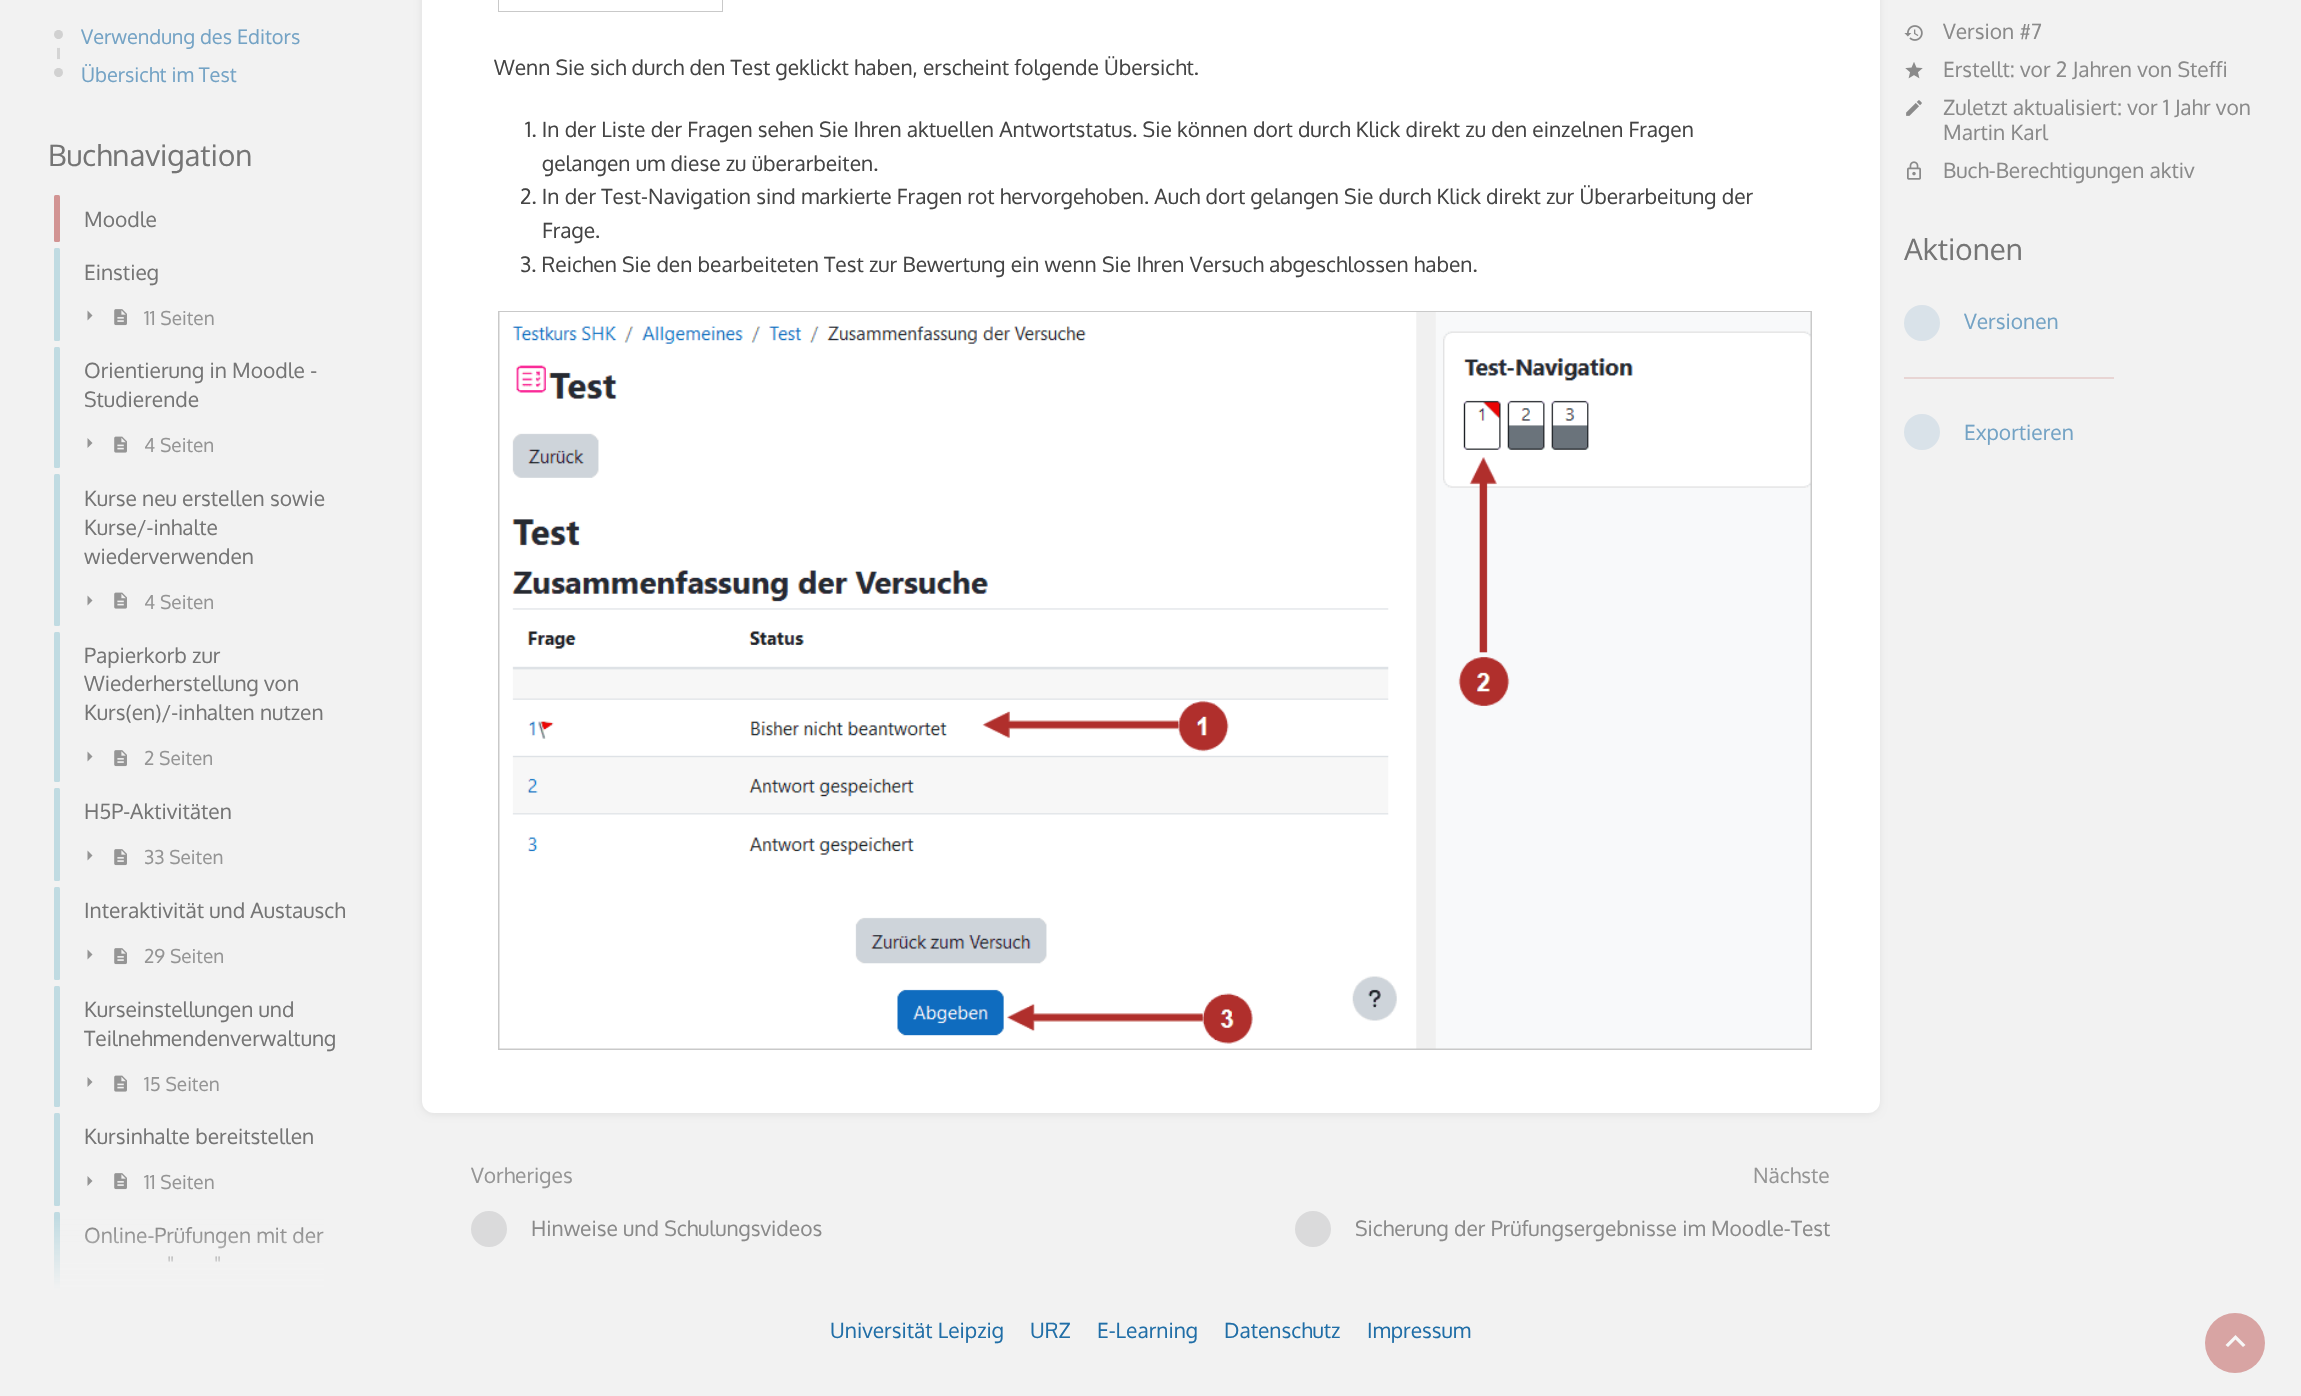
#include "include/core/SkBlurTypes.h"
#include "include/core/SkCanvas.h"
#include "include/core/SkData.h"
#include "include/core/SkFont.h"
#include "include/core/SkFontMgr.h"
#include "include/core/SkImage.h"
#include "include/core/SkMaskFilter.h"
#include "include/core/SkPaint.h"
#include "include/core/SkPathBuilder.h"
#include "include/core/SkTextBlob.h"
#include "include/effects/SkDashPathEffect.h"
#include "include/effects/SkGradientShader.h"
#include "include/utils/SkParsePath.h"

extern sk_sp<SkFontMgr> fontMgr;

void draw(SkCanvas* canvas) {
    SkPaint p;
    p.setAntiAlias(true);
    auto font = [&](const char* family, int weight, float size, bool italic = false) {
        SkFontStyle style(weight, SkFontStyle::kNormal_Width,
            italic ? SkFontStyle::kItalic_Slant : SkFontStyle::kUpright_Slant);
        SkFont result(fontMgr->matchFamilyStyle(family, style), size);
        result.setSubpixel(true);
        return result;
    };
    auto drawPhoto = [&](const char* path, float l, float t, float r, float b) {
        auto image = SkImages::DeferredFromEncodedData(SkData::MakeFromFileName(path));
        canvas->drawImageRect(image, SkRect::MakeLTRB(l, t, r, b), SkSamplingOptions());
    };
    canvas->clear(0xFFF2F2F2);
    p.setColor(0xFFD5D5D5);
    canvas->drawRect(SkRect::MakeLTRB(57, 27, 60, 83), p);
    p.setStyle(SkPaint::kStroke_Style);
    p.setStrokeWidth(9);
    p.setColor(0xFFF2F2F2);
    canvas->drawCircle(58.5f, 34.5f, 9, p);
    p.setStyle(SkPaint::kFill_Style);
    p.setColor(0xFFD1D1D1);
    canvas->drawCircle(58.5f, 34.5f, 4.5f, p);
    auto font1 = font("Oxygen", 400, 20);
    p.setColor(0xFF74A3C5);
    canvas->drawString("Verwendung des Editors", 81, 44, font1, p);
    p.setStyle(SkPaint::kStroke_Style);
    p.setColor(0xFFF2F2F2);
    canvas->drawCircle(58.5f, 72.5f, 9, p);
    p.setStyle(SkPaint::kFill_Style);
    p.setColor(0xFFD1D1D1);
    canvas->drawCircle(58.5f, 72.5f, 4.5f, p);
    p.setColor(0xFF74A3C5);
    canvas->drawString("Übersicht im Test", 81, 82, font1, p);
    auto font2 = font("Oxygen", 400, 29.5f);
    p.setColor(0xFF757575);
    canvas->drawString("Buchnavigation", 48, 166, font2, p);
    p.setColor(0xFFD29493);
    canvas->drawRoundRect(SkRect::MakeLTRB(54, 195, 60, 242), 1.5f, 1.5f, p);
    auto font3 = font("Oxygen", 400, 21);
    p.setColor(0xFF757575);
    canvas->drawString("Moodle", 84, 227, font3, p);
    p.setColor(0xFFC0DBE2);
    canvas->drawRoundRect(SkRect::MakeLTRB(54, 248, 60, 296), 1.5f, 1.5f, p);
    p.setColor(0xFF757575);
    canvas->drawString("Einstieg", 84, 280, font3, p);
    p.setColor(0xFFC0DBE2);
    canvas->drawRoundRect(SkRect::MakeLTRB(54, 293, 60, 341), 1.5f, 1.5f, p);
    p.setColor(0xFF959595);
    canvas->drawPath(SkPathBuilder().moveTo(87.5f, 320.5f).lineTo(92.5f, 315.5f).lineTo(87.5f, 310.5f).close().detach(), p);
    drawPhoto("media/1.png", 114, 309, 127, 326);
    auto font4 = font("Oxygen", 400, 19);
    canvas->drawString("11 Seiten", 144, 325, font4, p);
    p.setColor(0xFFC0DBE2);
    canvas->drawRoundRect(SkRect::MakeLTRB(54, 347, 60, 423), 1.5f, 1.5f, p);
    p.setColor(0xFF757575);
    canvas->drawString("Orientierung in Moodle -", 84, 378, font3, p);
    canvas->drawString("Studierende", 84, 407, font3, p);
    p.setColor(0xFFC0DBE2);
    canvas->drawRoundRect(SkRect::MakeLTRB(54, 420, 60, 468), 1.5f, 1.5f, p);
    p.setColor(0xFF959595);
    canvas->drawPath(SkPathBuilder().moveTo(87.5f, 448).lineTo(92.5f, 443).lineTo(87.5f, 438).close().detach(), p);
    drawPhoto("media/2.png", 114, 436, 127, 453);
    canvas->drawString("4 Seiten", 144, 452, font4, p);
    p.setColor(0xFFC0DBE2);
    canvas->drawRoundRect(SkRect::MakeLTRB(54, 474, 60, 579), 1.5f, 1.5f, p);
    p.setColor(0xFF757575);
    {
        const struct { const char* s; float x, y; } items[] = {
            {"Kurse neu erstellen sowie", 84, 506},
            {"Kurse/-inhalte", 84, 535},
            {"wiederverwenden", 84, 564},
        };
        for (auto [s, x, y] : items) {
            canvas->drawString(s, x, y, font3, p);
        }
    }
    p.setColor(0xFFC0DBE2);
    canvas->drawRoundRect(SkRect::MakeLTRB(54, 576, 60, 626), 1.5f, 1.5f, p);
    p.setColor(0xFF959595);
    canvas->drawPath(SkPathBuilder().moveTo(87.5f, 605.5f).lineTo(92.5f, 600.5f).lineTo(87.5f, 595.5f).close().detach(), p);
    drawPhoto("media/2.png", 114, 592, 127, 609);
    canvas->drawString("4 Seiten", 144, 609, font4, p);
    p.setColor(0xFFC0DBE2);
    canvas->drawRoundRect(SkRect::MakeLTRB(54, 632, 60, 735), 1.5f, 1.5f, p);
    p.setColor(0xFF757575);
    {
        const struct { const char* s; float x, y; } items[] = {
            {"Papierkorb zur", 84, 663},
            {"Wiederherstellung von", 84, 691},
            {"Kurs(en)/-inhalten nutzen", 84, 720},
        };
        for (auto [s, x, y] : items) {
            canvas->drawString(s, x, y, font3, p);
        }
    }
    p.setColor(0xFFC0DBE2);
    canvas->drawRoundRect(SkRect::MakeLTRB(54, 732, 60, 782), 1.5f, 1.5f, p);
    p.setColor(0xFF959595);
    canvas->drawPath(SkPathBuilder().moveTo(87.5f, 761.5f).lineTo(92.5f, 756.5f).lineTo(87.5f, 751.5f).close().detach(), p);
    drawPhoto("media/1.png", 114, 750, 127, 767);
    canvas->drawString("2 Seiten", 144, 765, font4, p);
    p.setColor(0xFFC0DBE2);
    canvas->drawRoundRect(SkRect::MakeLTRB(54, 788, 60, 834), 1.5f, 1.5f, p);
    p.setColor(0xFF757575);
    canvas->drawString("H5P-Aktivitäten", 84, 819, font3, p);
    p.setColor(0xFFC0DBE2);
    canvas->drawRoundRect(SkRect::MakeLTRB(54, 831, 60, 881), 1.5f, 1.5f, p);
    p.setColor(0xFF959595);
    canvas->drawPath(SkPathBuilder().moveTo(87.5f, 860.5f).lineTo(92.5f, 855.5f).lineTo(87.5f, 850.5f).close().detach(), p);
    drawPhoto("media/1.png", 114, 849, 127, 866);
    canvas->drawString("33 Seiten", 144, 864, font4, p);
    p.setColor(0xFFC0DBE2);
    canvas->drawRoundRect(SkRect::MakeLTRB(54, 887, 60, 933), 1.5f, 1.5f, p);
    p.setColor(0xFF757575);
    canvas->drawString("Interaktivität und Austausch", 84, 918, font3, p);
    p.setColor(0xFFC0DBE2);
    canvas->drawRoundRect(SkRect::MakeLTRB(54, 930, 60, 980), 1.5f, 1.5f, p);
    p.setColor(0xFF959595);
    canvas->drawPath(SkPathBuilder().moveTo(87.5f, 959.5f).lineTo(92.5f, 954.5f).lineTo(87.5f, 949.5f).close().detach(), p);
    drawPhoto("media/1.png", 114, 948, 127, 965);
    canvas->drawString("29 Seiten", 144, 963, font4, p);
    p.setColor(0xFFC0DBE2);
    canvas->drawRoundRect(SkRect::MakeLTRB(54, 986, 60, 1061), 1.5f, 1.5f, p);
    p.setColor(0xFF757575);
    canvas->drawString("Kurseinstellungen und", 84, 1017, font3, p);
    canvas->drawString("Teilnehmendenverwaltung", 84, 1046, font3, p);
    p.setColor(0xFFC0DBE2);
    canvas->drawRoundRect(SkRect::MakeLTRB(54, 1058, 60, 1107), 1.5f, 1.5f, p);
    p.setColor(0xFF959595);
    canvas->drawPath(SkPathBuilder().moveTo(87.5f, 1087).lineTo(92.5f, 1082).lineTo(87.5f, 1077).close().detach(), p);
    drawPhoto("media/2.png", 114, 1075, 127, 1092);
    canvas->drawString("15 Seiten", 144, 1091, font4, p);
    p.setColor(0xFFC0DBE2);
    canvas->drawRoundRect(SkRect::MakeLTRB(54, 1113, 60, 1160), 1.5f, 1.5f, p);
    p.setColor(0xFF757575);
    canvas->drawString("Kursinhalte bereitstellen", 84, 1144, font3, p);
    p.setColor(0xFFC0DBE2);
    canvas->drawRoundRect(SkRect::MakeLTRB(54, 1157, 60, 1206), 1.5f, 1.5f, p);
    p.setColor(0xFF959595);
    canvas->drawPath(SkPathBuilder().moveTo(87.5f, 1186).lineTo(92.5f, 1181).lineTo(87.5f, 1176).close().detach(), p);
    drawPhoto("media/1.png", 114, 1173, 127, 1190);
    canvas->drawString("11 Seiten", 144, 1189, font4, p);
    p.setColor(0xFFC0DBE2);
    canvas->drawRoundRect(SkRect::MakeLTRB(54, 1212, 60, 1287), 1.5f, 1.5f, p);
    p.setColor(0xFF757575);
    {
        const struct { const char* s; float x, y; } items[] = {
            {"Online-Prüfungen mit der", 84, 1243},
            {"\"", 167, 1272},
            {"\"", 214, 1272},
        };
        for (auto [s, x, y] : items) {
            canvas->drawString(s, x, y, font3, p);
        }
    }
    p.setColor(0xFFC0DBE2);
    canvas->drawPath(SkPathBuilder().moveTo(55.5f, 1284).lineTo(58.5f, 1284).cubicTo(59.5f, 1284, 60, 1284.5f, 60, 1285.5f).lineTo(60, 1290).lineTo(54, 1290).lineTo(54, 1285.5f).cubicTo(54, 1284.5f, 54.5f, 1284, 55.5f, 1284).close().detach(), p);
    {
        const SkColor colors[] = {0xFFF2F2F2, 0x00F2F2F2};
        const float stops[] = {0, 1};
        const SkPoint ends[] = {{223, 1290}, {223, 1215}};
        p.setShader(SkGradientShader::MakeLinear(ends, colors, stops, 2, SkTileMode::kClamp));
        p.setAlpha(255);
    }
    canvas->drawRect(SkRect::MakeLTRB(54, 1219, 324, 1290), p);
    drawPhoto("media/3.png", 1904, 25, 1923, 41);
    p.setShader(nullptr);
    p.setColor(0xFF8A8A8A);
    canvas->drawString("Version #7", 1943, 39, font3, p);
    drawPhoto("media/4.png", 1905, 62, 1923, 79);
    canvas->drawString("Erstellt: vor 2 Jahren von Steffi", 1943, 77, font3, p);
    drawPhoto("media/5.png", 1906, 100, 1922, 116);
    canvas->drawString("Zuletzt aktualisiert: vor 1 Jahr von", 1943, 115, font3, p);
    canvas->drawString("Martin Karl", 1943, 140, font3, p);
    drawPhoto("media/6.png", 1907, 161, 1921, 180);
    canvas->drawString("Buch-Berechtigungen aktiv", 1943, 178, font3, p);
    p.setColor(0xFF757575);
    canvas->drawString("Aktionen", 1904, 260, font2, p);
    p.setColor(0xFFD9E2E9);
    canvas->drawCircle(1922, 323, 18, p);
    p.setColor(0xFF74A3C5);
    canvas->drawString("Versionen", 1964, 329, font3, p);
    p.setColor(0xFFE8D5D4);
    canvas->drawRect(SkRect::MakeLTRB(1904, 377, 2114, 379), p);
    p.setColor(0xFFD9E2E9);
    canvas->drawCircle(1922, 432, 18, p);
    p.setColor(0xFF74A3C5);
    canvas->drawString("Exportieren", 1964, 440, font3, p);
    p.setColor(0x1A000000);
    p.setMaskFilter(SkMaskFilter::MakeBlur(kNormal_SkBlurStyle, 4.5f));
    canvas->drawRoundRect(SkRect::MakeLTRB(423, -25, 1878, 1113), 11, 11, p);
    p.setMaskFilter(nullptr);
    p.setColor(0xFFFFFFFF);
    canvas->drawRoundRect(SkRect::MakeLTRB(422, -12, 1880, 1113), 12, 12, p);
    p.setStyle(SkPaint::kStroke_Style);
    p.setStrokeWidth(2);
    p.setColor(0xFFC9C9C9);
    canvas->drawRect(SkRect::MakeLTRB(499, -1, 722, 11), p);
    p.setStyle(SkPaint::kFill_Style);
    p.setColor(0xFFFFFFFF);
    canvas->drawRect(SkRect::MakeLTRB(499, 0, 722, 11), p);
    p.setColor(0xFF444444);
    {
        const struct { const char* s; float x, y; } items[] = {
            {"Wenn Sie sich durch den Test geklickt haben, erscheint folgende Übersicht.", 494, 75},
            {"1. In der Liste der Fragen sehen Sie Ihren aktuellen Antwortstatus. Sie können dort durch Klick direkt zu den einzelnen Fragen", 525, 137},
            {"gelangen um diese zu überarbeiten.", 542, 171},
            {"2. In der Test-Navigation sind markierte Fragen rot hervorgehoben. Auch dort gelangen Sie durch Klick direkt zur Überarbeitung der", 520, 204},
            {"Frage.", 542, 238},
            {"3. Reichen Sie den bearbeiteten Test zur Bewertung ein wenn Sie Ihren Versuch abgeschlossen haben.", 520, 272},
        };
        for (auto [s, x, y] : items) {
            canvas->drawString(s, x, y, font3, p);
        }
    }
    p.setStyle(SkPaint::kStroke_Style);
    p.setColor(0xFFC9C9C9);
    canvas->drawRect(SkRect::MakeLTRB(499, 312, 1811, 1049), p);
    drawPhoto("media/7.png", 499, 312, 1811, 1049);
    p.setStyle(SkPaint::kFill_Style);
    p.setColor(0xFF959595);
    canvas->drawString("Vorheriges", 471, 1183, font3, p);
    p.setColor(0xFFDADADB);
    canvas->drawCircle(489, 1229, 18, p);
    p.setColor(0xFF8A8A8A);
    canvas->drawString("Hinweise und Schulungsvideos", 531, 1236, font3, p);
    p.setColor(0xFF959595);
    canvas->drawString("Nächste", 1753, 1183, font3, p);
    p.setColor(0xFFDADADB);
    canvas->drawCircle(1313, 1229, 18, p);
    p.setColor(0xFF8A8A8A);
    canvas->drawString("Sicherung der Prüfungsergebnisse im Moodle-Test", 1355, 1236, font3, p);
    p.setColor(0xFF206EA7);
    {
        const struct { const char* s; float x, y; } items[] = {
            {"Universität Leipzig", 830, 1338},
            {"URZ", 1030, 1338},
            {"E-Learning", 1097, 1338},
            {"Datenschutz", 1224, 1338},
            {"Impressum", 1367, 1338},
        };
        for (auto [s, x, y] : items) {
            canvas->drawString(s, x, y, font3, p);
        }
    }
    p.setColor(0xFFD8A4A3);
    canvas->drawCircle(2235, 1343, 30, p);
    p.setColor(0xFFF7F7F7);
    canvas->drawPath(SkPathBuilder().moveTo(2228, 1347).lineTo(2235.5f, 1339.5f).lineTo(2243, 1347).lineTo(2245.5f, 1345).lineTo(2235.5f, 1335).lineTo(2225.5f, 1345).close().detach(), p);
}
